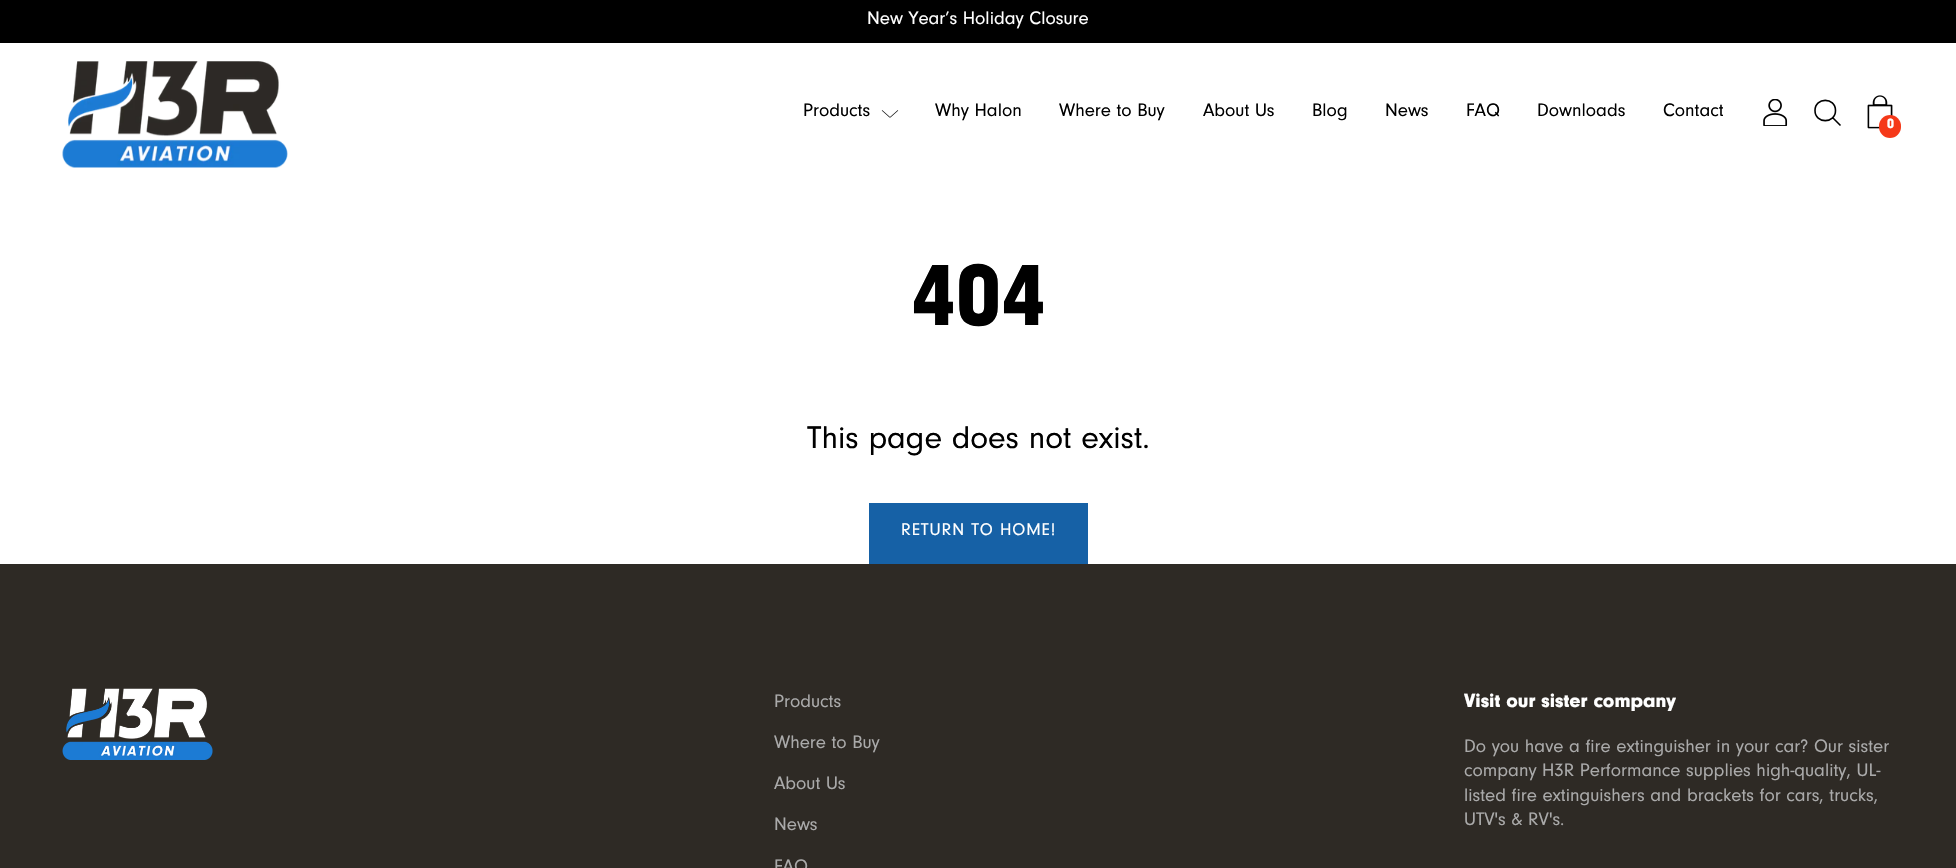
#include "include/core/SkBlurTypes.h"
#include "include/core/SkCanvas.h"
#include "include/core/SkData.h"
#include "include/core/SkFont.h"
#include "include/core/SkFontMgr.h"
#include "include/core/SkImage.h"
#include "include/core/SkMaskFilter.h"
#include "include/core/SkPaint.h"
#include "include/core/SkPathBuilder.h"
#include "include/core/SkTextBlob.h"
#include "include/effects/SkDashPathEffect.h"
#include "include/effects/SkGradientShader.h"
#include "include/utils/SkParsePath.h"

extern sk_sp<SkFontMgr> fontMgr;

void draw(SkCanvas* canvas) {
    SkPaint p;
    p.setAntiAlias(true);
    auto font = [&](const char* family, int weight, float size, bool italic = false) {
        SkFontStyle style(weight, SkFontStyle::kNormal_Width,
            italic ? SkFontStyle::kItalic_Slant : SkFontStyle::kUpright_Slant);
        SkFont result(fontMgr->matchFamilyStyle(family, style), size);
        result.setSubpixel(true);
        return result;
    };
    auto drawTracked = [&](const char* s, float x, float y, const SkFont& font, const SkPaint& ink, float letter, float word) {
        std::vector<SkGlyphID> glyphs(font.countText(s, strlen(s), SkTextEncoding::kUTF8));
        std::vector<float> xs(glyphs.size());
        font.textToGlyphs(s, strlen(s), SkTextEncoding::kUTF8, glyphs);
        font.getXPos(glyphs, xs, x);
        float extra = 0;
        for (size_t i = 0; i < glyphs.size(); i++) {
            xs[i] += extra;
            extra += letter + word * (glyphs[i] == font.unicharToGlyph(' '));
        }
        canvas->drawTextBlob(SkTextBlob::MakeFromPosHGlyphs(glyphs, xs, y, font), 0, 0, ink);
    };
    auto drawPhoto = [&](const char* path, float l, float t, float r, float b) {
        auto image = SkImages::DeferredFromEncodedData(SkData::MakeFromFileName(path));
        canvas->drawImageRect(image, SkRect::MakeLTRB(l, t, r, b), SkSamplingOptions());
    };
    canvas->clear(0xFFFFFFFF);
    p.setColor(0xFF000000);
    canvas->drawRect(SkRect::MakeLTRB(0, 0, 1956, 43), p);
    auto font1 = font("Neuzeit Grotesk", 400, 18.75f);
    p.setColor(0xFFFFFFFF);
    canvas->drawString("New Year’s Holiday Closure", 867, 24, font1, p);
    drawPhoto("media/1.png", 62, 61, 288, 168);
    p.setColor(0xFF000000);
    canvas->drawString("Products", 803, 116, font1, p);
    drawPhoto("media/2.png", 881, 110, 899, 118);
    {
        const struct { const char* s; float x, y; } items[] = {
            {"Why Halon", 935, 116},
            {"Where to Buy", 1059, 116},
            {"About Us", 1203, 116},
            {"Blog", 1312, 116},
            {"News", 1385, 116},
            {"FAQ", 1466, 116},
            {"Downloads", 1537, 116},
            {"Contact", 1663, 116},
        };
        for (auto [s, x, y] : items) {
            canvas->drawString(s, x, y, font1, p);
        }
    }
    drawPhoto("media/3.png", 1763, 99, 1788, 126);
    p.setStyle(SkPaint::kStroke_Style);
    p.setStrokeWidth(1.6f);
    canvas->drawPath(SkPathBuilder().moveTo(1835.5f, 110.5f).cubicTo(1835.5f, 124, 1815, 124, 1815, 110.5f).cubicTo(1815, 97, 1835.5f, 97, 1835.5f, 110.5f).close().moveTo(1832.5f, 117.5f).lineTo(1840.5f, 125.5f).detach(), p);
    drawPhoto("media/4.png", 1867, 95, 1893, 129);
    p.setStyle(SkPaint::kFill_Style);
    p.setColor(0xFFF53919);
    canvas->drawRoundRect(SkRect::MakeLTRB(1879, 115, 1901, 138), 11, 11, p);
    auto font2 = font("Neuzeit Grotesk", 900, 14);
    p.setColor(0xFFFFFFFF);
    canvas->drawString("0", 1887, 128, font2, p);
    auto font3 = font("Neuzeit Grotesk", 900, 90);
    p.setColor(0xFF000000);
    canvas->drawString("404", 911, 325, font3, p);
    auto font4 = font("Neuzeit Grotesk", 400, 32.5f);
    canvas->drawString("This page does not exist.", 807, 448, font4, p);
    p.setColor(0xFF1661A6);
    canvas->drawRect(SkRect::MakeLTRB(869, 503, 1088, 564), p);
    auto font5 = font("Neuzeit Grotesk", 400, 17.5f);
    p.setColor(0xFFFFFFFF);
    drawTracked("RETURN TO HOME!", 901, 535, font5, p, 0.9f, 0);
    p.setColor(0xFF2E2A25);
    canvas->drawRect(SkRect::MakeLTRB(0, 564, 1956, 868), p);
    drawPhoto("media/5.png", 62, 688, 213, 760);
    p.setColor(0xFFAAAAAA);
    {
        const struct { const char* s; float x, y; } items[] = {
            {"Products", 774, 707},
            {"Where to Buy", 774, 748},
            {"About Us", 774, 789},
            {"News", 774, 830},
            {"FAQ", 774, 872},
        };
        for (auto [s, x, y] : items) {
            canvas->drawString(s, x, y, font1, p);
        }
    }
    auto font6 = font("Neuzeit Grotesk", 900, 20);
    p.setColor(0xFFFFFFFF);
    canvas->drawString("Visit our sister company", 1464, 707, font6, p);
    p.setColor(0xFFAAAAAA);
    {
        const struct { const char* s; float x, y; } items[] = {
            {"Do you have a fire extinguisher in your car? Our sister", 1464, 752},
            {"company", 1464, 776},
            {"H3R Performance", 1542, 776},
            {"supplies high-quality, UL-", 1686, 776},
            {"listed fire extinguishers and brackets for cars, trucks,", 1464, 801},
            {"UTV's & RV's.", 1464, 825},
        };
        for (auto [s, x, y] : items) {
            canvas->drawString(s, x, y, font1, p);
        }
    }
}
